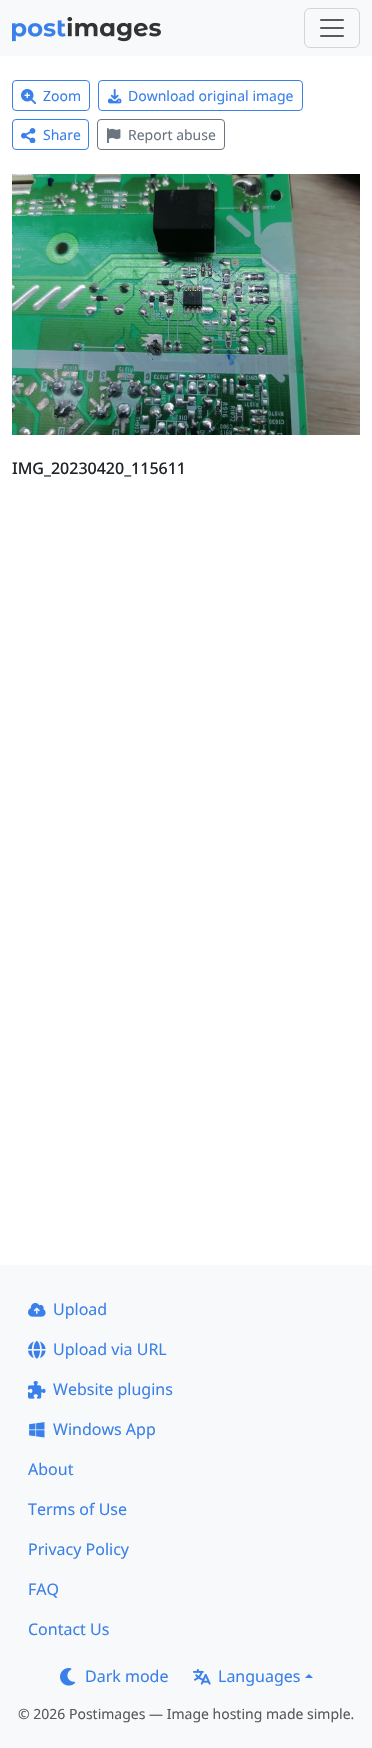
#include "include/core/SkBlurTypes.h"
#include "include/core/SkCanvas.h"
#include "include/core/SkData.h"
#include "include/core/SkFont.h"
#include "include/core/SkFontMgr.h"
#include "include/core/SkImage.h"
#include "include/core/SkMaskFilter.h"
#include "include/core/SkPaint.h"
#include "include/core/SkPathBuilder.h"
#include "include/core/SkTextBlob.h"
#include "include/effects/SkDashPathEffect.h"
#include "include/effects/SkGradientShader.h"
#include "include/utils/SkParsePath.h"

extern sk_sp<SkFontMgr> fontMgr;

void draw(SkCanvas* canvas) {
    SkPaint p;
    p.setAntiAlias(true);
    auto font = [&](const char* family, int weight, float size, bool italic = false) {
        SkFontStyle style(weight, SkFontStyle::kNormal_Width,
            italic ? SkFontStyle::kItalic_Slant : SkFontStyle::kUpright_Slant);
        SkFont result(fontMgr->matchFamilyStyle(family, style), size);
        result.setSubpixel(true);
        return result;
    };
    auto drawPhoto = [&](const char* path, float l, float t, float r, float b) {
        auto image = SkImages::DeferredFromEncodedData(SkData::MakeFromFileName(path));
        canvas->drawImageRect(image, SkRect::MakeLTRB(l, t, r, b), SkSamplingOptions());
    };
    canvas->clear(0xFFFFFFFF);
    p.setColor(0xFFF8F9FA);
    canvas->drawRect(SkRect::MakeLTRB(0, 0, 372, 56), p);
    drawPhoto("media/1.png", 12, 17, 161, 42);
    p.setStyle(SkPaint::kStroke_Style);
    p.setStrokeWidth(1);
    p.setColor(0xFFD3D4D5);
    canvas->drawRoundRect(SkRect::MakeLTRB(304.5f, 8.5f, 359.5f, 47.5f), 5.5f, 5.5f, p);
    drawPhoto("media/2.png", 320, 19, 344, 37);
    p.setColor(0xFF3A80EA);
    canvas->drawRoundRect(SkRect::MakeLTRB(12.5f, 80.5f, 89.5f, 110.5f), 3.5f, 3.5f, p);
    drawPhoto("media/3.png", 21, 89, 36, 104);
    auto font1 = font("Noto Sans", 400, 14);
    p.setStyle(SkPaint::kFill_Style);
    canvas->drawString("Zoom", 43, 101, font1, p);
    p.setStyle(SkPaint::kStroke_Style);
    canvas->drawRoundRect(SkRect::MakeLTRB(98.5f, 80.5f, 302.5f, 110.5f), 3.5f, 3.5f, p);
    drawPhoto("media/4.png", 107, 89, 122, 104);
    p.setStyle(SkPaint::kFill_Style);
    canvas->drawString("Download original image", 128, 101, font1, p);
    p.setStyle(SkPaint::kStroke_Style);
    canvas->drawRoundRect(SkRect::MakeLTRB(12.5f, 119.5f, 88.5f, 149.5f), 3.5f, 3.5f, p);
    drawPhoto("media/5.png", 21, 128, 36, 143);
    p.setStyle(SkPaint::kFill_Style);
    canvas->drawString("Share", 43, 140, font1, p);
    p.setStyle(SkPaint::kStroke_Style);
    p.setColor(0xFF6C757D);
    canvas->drawRoundRect(SkRect::MakeLTRB(97.5f, 119.5f, 224.5f, 149.5f), 3.5f, 3.5f, p);
    drawPhoto("media/6.png", 106, 128, 121, 143);
    p.setStyle(SkPaint::kFill_Style);
    canvas->drawString("Report abuse", 128, 140, font1, p);
    drawPhoto("media/7.png", 12, 174, 360, 435);
    auto font2 = font("Noto Sans", 500, 16);
    p.setColor(0xFF212529);
    canvas->drawString("IMG_20230420_115611", 12, 474, font2, p);
    p.setColor(0xFFF8F9FA);
    canvas->drawRect(SkRect::MakeLTRB(0, 1265, 372, 1748), p);
    drawPhoto("media/8.png", 28, 1303, 46, 1317);
    auto font3 = font("Noto Sans", 400, 16);
    p.setColor(0xFF3A80EA);
    canvas->drawString("Upload", 53, 1315, font3, p);
    drawPhoto("media/9.png", 28, 1341, 46, 1359);
    canvas->drawString("Upload via URL", 53, 1355, font3, p);
    drawPhoto("media/10.png", 28, 1381, 46, 1399);
    canvas->drawString("Website plugins", 53, 1395, font3, p);
    drawPhoto("media/11.png", 29, 1422, 45, 1438);
    {
        const struct { const char* s; float x, y; } items[] = {
            {"Windows App", 53, 1435},
            {"About", 28, 1475},
            {"Terms of Use", 28, 1515},
            {"Privacy Policy", 28, 1555},
            {"FAQ", 28, 1595},
            {"Contact Us", 28, 1635},
        };
        for (auto [s, x, y] : items) {
            canvas->drawString(s, x, y, font3, p);
        }
    }
    drawPhoto("media/12.png", 60, 1668, 76, 1686);
    canvas->drawString("Dark mode", 85, 1682, font3, p);
    drawPhoto("media/13.png", 193, 1669, 211, 1685);
    canvas->drawString("Languages", 218, 1682, font3, p);
    canvas->drawPath(SkPathBuilder().moveTo(313, 1678).lineTo(305, 1678).lineTo(309, 1674).close().detach(), p);
    p.setColor(0xFF575A5D);
    canvas->drawString("© 2026 Postimages — Image hosting made simple.", 18, 1719, font1, p);
}
